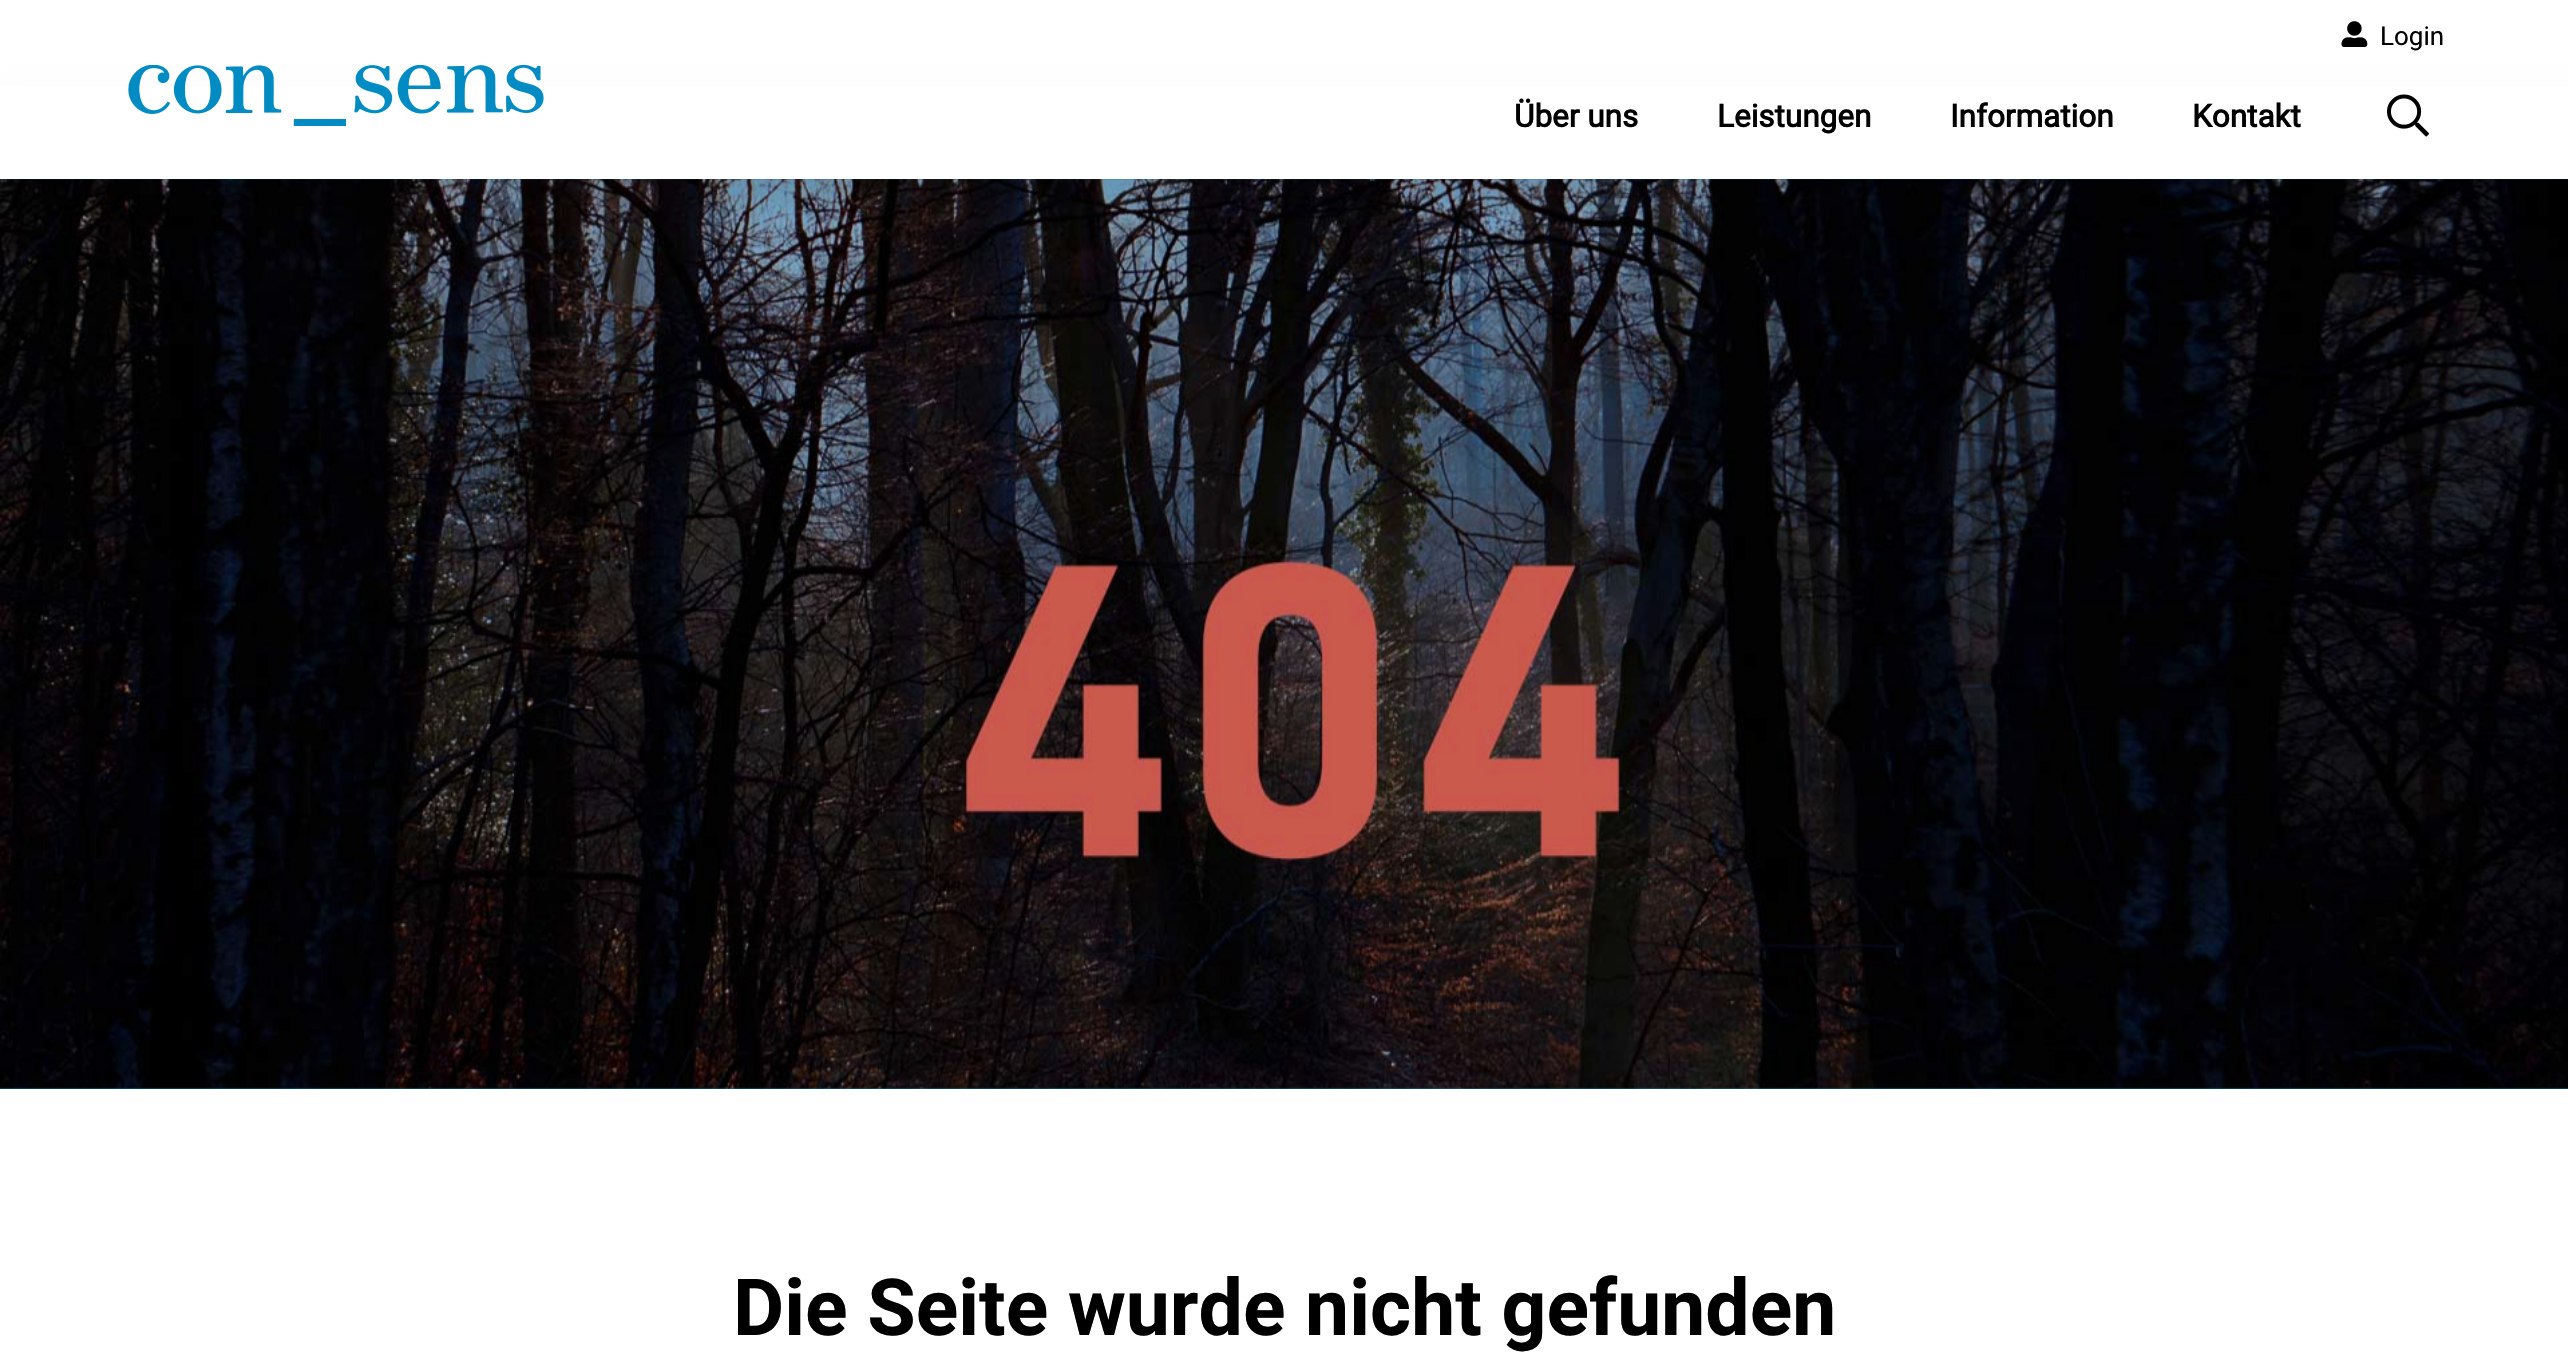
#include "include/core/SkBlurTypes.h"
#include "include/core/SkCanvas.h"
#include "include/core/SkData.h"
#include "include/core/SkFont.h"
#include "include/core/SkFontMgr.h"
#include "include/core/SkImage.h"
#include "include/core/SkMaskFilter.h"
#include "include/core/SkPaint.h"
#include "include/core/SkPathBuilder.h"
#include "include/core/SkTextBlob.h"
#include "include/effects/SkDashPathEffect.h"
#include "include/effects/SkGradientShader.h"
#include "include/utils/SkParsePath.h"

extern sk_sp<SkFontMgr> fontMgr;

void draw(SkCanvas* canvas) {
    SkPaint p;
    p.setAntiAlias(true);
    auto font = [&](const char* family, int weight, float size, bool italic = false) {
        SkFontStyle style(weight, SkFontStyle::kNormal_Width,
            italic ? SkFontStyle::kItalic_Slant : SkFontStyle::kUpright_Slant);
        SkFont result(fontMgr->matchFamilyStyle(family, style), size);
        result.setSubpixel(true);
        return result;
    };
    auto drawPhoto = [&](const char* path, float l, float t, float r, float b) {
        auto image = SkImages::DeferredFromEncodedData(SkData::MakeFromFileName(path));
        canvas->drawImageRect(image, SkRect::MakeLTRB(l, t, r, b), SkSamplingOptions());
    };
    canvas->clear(0xFFFFFFFF);
    drawPhoto("media/1.png", 2341, 21, 2368, 47);
    auto font1 = font("Roboto", 400, 26);
    p.setColor(0xFF000000);
    canvas->drawString("Login", 2380, 45, font1, p);
    p.setColor(0xFF00719E);
    canvas->drawRect(SkRect::MakeLTRB(0, 179, 2568, 1089), p);
    drawPhoto("media/4.png", 0, 179, 2568, 1089);
    p.setColor(0x1A000000);
    p.setMaskFilter(SkMaskFilter::MakeBlur(kNormal_SkBlurStyle, 13));
    canvas->drawRect(SkRect::MakeLTRB(9, 103, 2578, 205), p);
    p.setMaskFilter(nullptr);
    p.setColor(0xFFFFFFFF);
    canvas->drawRect(SkRect::MakeLTRB(0, 86, 2568, 179), p);
    drawPhoto("media/2.png", 128, 65, 544, 126);
    auto font2 = font("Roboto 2", 700, 31.5f);
    p.setColor(0xFF000000);
    {
        const struct { const char* s; float x, y; } items[] = {
            {"Über uns", 1514, 127},
            {"Leistungen", 1717, 127},
            {"Information", 1950, 127},
            {"Kontakt", 2192, 127},
        };
        for (auto [s, x, y] : items) {
            canvas->drawString(s, x, y, font2, p);
        }
    }
    drawPhoto("media/3.png", 2387, 94, 2429, 137);
    auto font3 = font("Roboto", 700, 78.75f);
    canvas->drawString("Die Seite wurde nicht gefunden", 733, 1335, font3, p);
}
